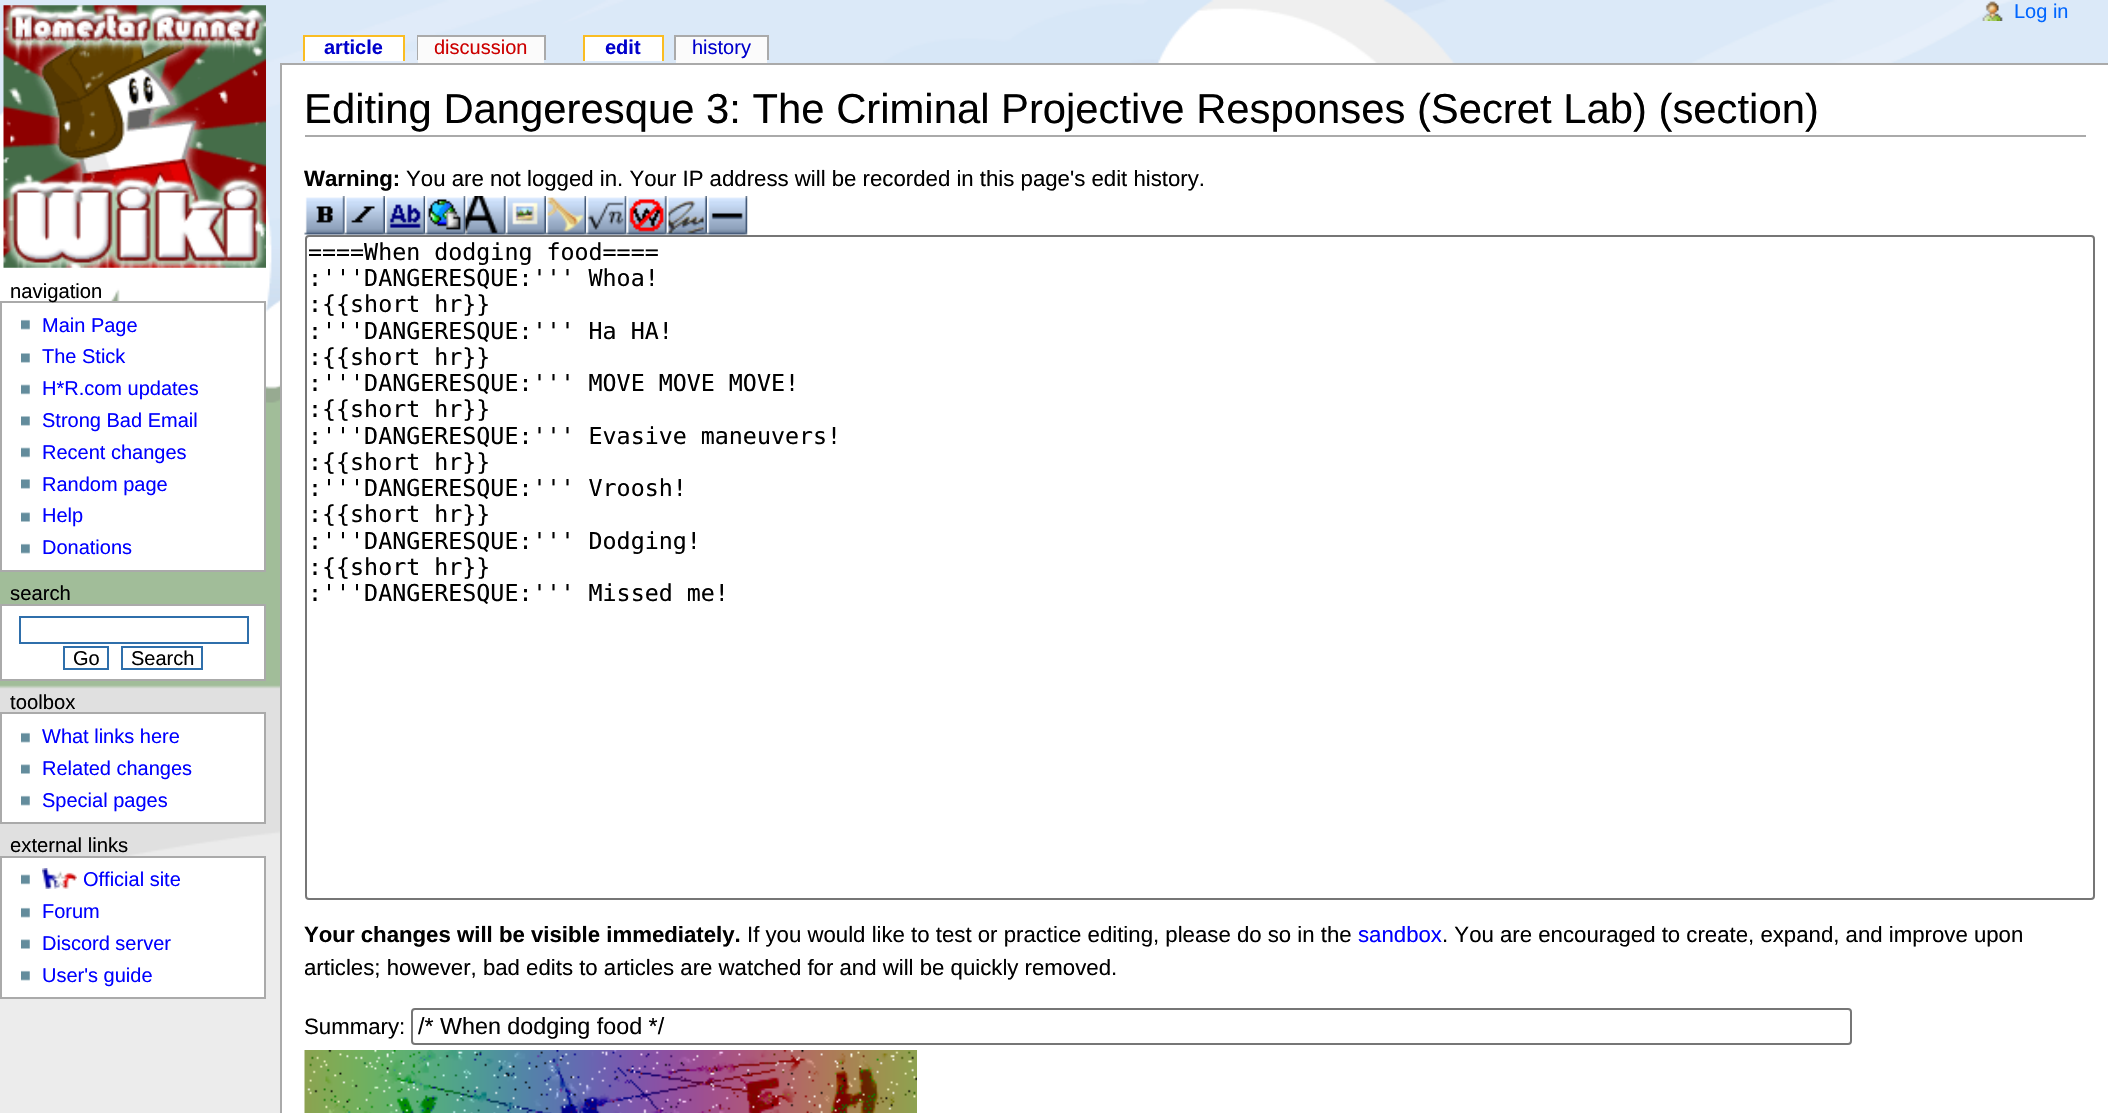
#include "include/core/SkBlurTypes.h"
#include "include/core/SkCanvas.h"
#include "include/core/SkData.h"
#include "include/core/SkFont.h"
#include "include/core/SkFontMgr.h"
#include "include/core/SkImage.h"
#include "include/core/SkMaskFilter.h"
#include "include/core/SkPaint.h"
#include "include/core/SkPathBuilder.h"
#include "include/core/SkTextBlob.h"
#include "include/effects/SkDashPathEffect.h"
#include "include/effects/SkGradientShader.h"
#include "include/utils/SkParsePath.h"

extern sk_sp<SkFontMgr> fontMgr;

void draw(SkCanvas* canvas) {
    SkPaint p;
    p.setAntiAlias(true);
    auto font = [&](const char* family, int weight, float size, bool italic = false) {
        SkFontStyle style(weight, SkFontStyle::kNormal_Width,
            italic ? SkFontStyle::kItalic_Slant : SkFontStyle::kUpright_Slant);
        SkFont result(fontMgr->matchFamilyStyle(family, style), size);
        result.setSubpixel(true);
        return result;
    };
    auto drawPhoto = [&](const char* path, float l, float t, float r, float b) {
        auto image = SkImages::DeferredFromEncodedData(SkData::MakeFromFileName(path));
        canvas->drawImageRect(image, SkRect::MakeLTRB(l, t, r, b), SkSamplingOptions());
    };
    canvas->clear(0xFFECECEC);
    drawPhoto("media/1.png", 0, 0, 2108, 910);
    drawPhoto("media/2.png", 3, 5, 266, 268);
    p.setColor(0xFFFFFFFF);
    canvas->drawRect(SkRect::MakeLTRB(305, 37, 403, 61), p);
    auto font1 = font("Liberation Sans", 700, 20);
    p.setColor(0xFF0000CC);
    canvas->drawString("article", 324, 54, font1, p);
    {
        const struct { float l, t, r, b; SkColor color; } items[] = {
            {303, 35, 404, 37, 0xFFFABD23},
            {403, 35, 405, 61, 0xFFFABD23},
            {303, 35, 305, 61, 0xFFFABD23},
            {417, 35, 546, 37, 0xFFAAAAAA},
            {417, 35, 419, 60, 0xFFAAAAAA},
            {418, 37, 544, 63, 0xFFFBFBFB},
        };
        for (auto [l, t, r, b, color] : items) {
            p.setColor(color);
            canvas->drawRect(SkRect::MakeLTRB(l, t, r, b), p);
        }
    }
    auto font2 = font("Liberation Sans", 400, 20);
    p.setColor(0xFFCC0000);
    canvas->drawString("discussion", 434, 54, font2, p);
    p.setColor(0xFFAAAAAA);
    canvas->drawRect(SkRect::MakeLTRB(544, 35, 546, 60), p);
    p.setColor(0xFFFFFFFF);
    canvas->drawRect(SkRect::MakeLTRB(585, 37, 662, 61), p);
    p.setColor(0xFF0000CC);
    canvas->drawString("edit", 605, 54, font1, p);
    {
        const struct { float l, t, r, b; SkColor color; } items[] = {
            {583, 35, 663, 37, 0xFFFABD23},
            {662, 35, 664, 61, 0xFFFABD23},
            {583, 35, 585, 61, 0xFFFABD23},
            {676, 37, 767, 63, 0xFFFBFBFB},
        };
        for (auto [l, t, r, b, color] : items) {
            p.setColor(color);
            canvas->drawRect(SkRect::MakeLTRB(l, t, r, b), p);
        }
    }
    p.setColor(0xFF0000CC);
    canvas->drawString("history", 692, 54, font2, p);
    {
        const struct { float l, t, r, b; SkColor color; } items[] = {
            {674, 35, 768, 37, 0xFFAAAAAA},
            {767, 35, 769, 60, 0xFFAAAAAA},
            {674, 35, 676, 60, 0xFFAAAAAA},
        };
        for (auto [l, t, r, b, color] : items) {
            p.setColor(color);
            canvas->drawRect(SkRect::MakeLTRB(l, t, r, b), p);
        }
    }
    drawPhoto("media/3.png", 1982, 1, 2003, 21);
    p.setColor(0xFF0066FF);
    canvas->drawString("Log in", 2014, 18, font2, p);
    p.setColor(0xFFFFFFFF);
    canvas->drawRect(SkRect::MakeLTRB(1, 302, 265, 571), p);
    p.setStyle(SkPaint::kStroke_Style);
    p.setStrokeWidth(2);
    p.setColor(0xFFAAAAAA);
    canvas->drawRect(SkRect::MakeLTRB(1, 302, 265, 571), p);
    auto font3 = font("Liberation Sans", 400, 20.25f);
    p.setStyle(SkPaint::kFill_Style);
    p.setColor(0xFF000000);
    canvas->drawString("navigation", 10, 298, font3, p);
    drawPhoto("media/4.png", 21, 319, 30, 330);
    p.setColor(0xFF0000FF);
    canvas->drawString("Main Page", 42, 332, font2, p);
    drawPhoto("media/5.png", 21, 353, 30, 363);
    canvas->drawString("The Stick", 42, 363, font2, p);
    drawPhoto("media/6.png", 21, 384, 30, 395);
    canvas->drawString("H*R.com updates", 42, 395, font2, p);
    drawPhoto("media/5.png", 21, 416, 30, 426);
    canvas->drawString("Strong Bad Email", 42, 427, font2, p);
    drawPhoto("media/6.png", 21, 447, 30, 458);
    canvas->drawString("Recent changes", 42, 459, font2, p);
    drawPhoto("media/5.png", 21, 479, 30, 489);
    canvas->drawString("Random page", 42, 491, font2, p);
    drawPhoto("media/7.png", 21, 512, 30, 522);
    canvas->drawString("Help", 42, 522, font2, p);
    drawPhoto("media/4.png", 21, 543, 30, 554);
    canvas->drawString("Donations", 42, 554, font2, p);
    p.setColor(0xFF000000);
    canvas->drawString("search", 10, 600, font3, p);
    p.setColor(0xFFFFFFFF);
    canvas->drawRect(SkRect::MakeLTRB(1, 605, 265, 680), p);
    p.setStyle(SkPaint::kStroke_Style);
    p.setColor(0xFFAAAAAA);
    canvas->drawRect(SkRect::MakeLTRB(1, 605, 265, 680), p);
    p.setColor(0xFF2F6FAB);
    canvas->drawRect(SkRect::MakeLTRB(20, 617, 248, 643), p);
    canvas->drawRect(SkRect::MakeLTRB(64, 647, 108, 669), p);
    p.setStyle(SkPaint::kFill_Style);
    p.setColor(0xFF000000);
    canvas->drawString("Go", 73, 665, font2, p);
    p.setStyle(SkPaint::kStroke_Style);
    p.setColor(0xFF2F6FAB);
    canvas->drawRect(SkRect::MakeLTRB(122, 647, 202, 669), p);
    p.setStyle(SkPaint::kFill_Style);
    p.setColor(0xFF000000);
    canvas->drawString("Search", 131, 665, font2, p);
    canvas->drawString("toolbox", 10, 709, font3, p);
    p.setColor(0xFFFFFFFF);
    canvas->drawRect(SkRect::MakeLTRB(1, 713, 265, 823), p);
    p.setStyle(SkPaint::kStroke_Style);
    p.setColor(0xFFAAAAAA);
    canvas->drawRect(SkRect::MakeLTRB(1, 713, 265, 823), p);
    drawPhoto("media/4.png", 21, 732, 30, 743);
    p.setStyle(SkPaint::kFill_Style);
    p.setColor(0xFF0000FF);
    canvas->drawString("What links here", 42, 743, font2, p);
    drawPhoto("media/7.png", 21, 764, 30, 774);
    canvas->drawString("Related changes", 42, 775, font2, p);
    drawPhoto("media/4.png", 21, 795, 30, 806);
    canvas->drawString("Special pages", 42, 807, font2, p);
    p.setColor(0xFF000000);
    canvas->drawString("external links", 10, 852, font3, p);
    p.setColor(0xFFFFFFFF);
    canvas->drawRect(SkRect::MakeLTRB(1, 857, 265, 998), p);
    p.setStyle(SkPaint::kStroke_Style);
    p.setColor(0xFFAAAAAA);
    canvas->drawRect(SkRect::MakeLTRB(1, 857, 265, 998), p);
    drawPhoto("media/6.png", 21, 874, 30, 885);
    drawPhoto("media/8.png", 42, 868, 77, 889);
    p.setStyle(SkPaint::kFill_Style);
    p.setColor(0xFF0000FF);
    canvas->drawString("Official site", 83, 886, font2, p);
    drawPhoto("media/4.png", 21, 907, 30, 918);
    canvas->drawString("Forum", 42, 918, font2, p);
    drawPhoto("media/7.png", 21, 939, 30, 949);
    canvas->drawString("Discord server", 42, 950, font2, p);
    drawPhoto("media/4.png", 21, 970, 30, 981);
    canvas->drawString("User's guide", 42, 982, font2, p);
    {
        const struct { float l, t, r, b; SkColor color; } items[] = {
            {282, 65, 2108, 1113, 0xFFFFFFFF},
            {280, 63, 2108, 65, 0xFFAAAAAA},
            {280, 63, 282, 1113, 0xFFAAAAAA},
            {305, 135, 2086, 137, 0xFFAAAAAA},
        };
        for (auto [l, t, r, b, color] : items) {
            p.setColor(color);
            canvas->drawRect(SkRect::MakeLTRB(l, t, r, b), p);
        }
    }
    auto font4 = font("Liberation Sans", 400, 41.8f);
    p.setColor(0xFF000000);
    canvas->drawString("Editing Dangeresque 3: The Criminal Projective Responses (Secret Lab) (section)", 304, 123, font4, p);
    auto font5 = font("Liberation Sans", 700, 22.2f);
    canvas->drawString("Warning:", 304, 186, font5, p);
    auto font6 = font("Liberation Sans", 400, 22.2f);
    canvas->drawString("You are not logged in. Your IP address will be recorded in this page's edit history.", 406, 186, font6, p);
    drawPhoto("media/9.png", 304, 196, 345, 235);
    drawPhoto("media/10.png", 344, 196, 385, 235);
    drawPhoto("media/11.png", 385, 196, 426, 235);
    drawPhoto("media/12.png", 425, 196, 466, 235);
    drawPhoto("media/13.png", 465, 196, 506, 235);
    drawPhoto("media/14.png", 505, 196, 546, 235);
    drawPhoto("media/15.png", 546, 196, 587, 235);
    drawPhoto("media/16.png", 586, 196, 627, 235);
    drawPhoto("media/17.png", 626, 196, 667, 235);
    drawPhoto("media/18.png", 666, 196, 707, 235);
    drawPhoto("media/19.png", 707, 196, 748, 235);
    p.setStyle(SkPaint::kStroke_Style);
    p.setColor(0xFF767676);
    canvas->drawRoundRect(SkRect::MakeLTRB(306, 236, 2094, 899), 3, 3, p);
    auto font7 = font("DejaVu Sans Mono", 400, 23.3f);
    p.setStyle(SkPaint::kFill_Style);
    p.setColor(0xFF000000);
    {
        const struct { const char* s; float x, y; } items[] = {
            {"====When dodging food====", 308, 260},
            {":'''DANGERESQUE:''' Whoa!", 308, 286},
            {":{{short hr}}", 308, 312},
            {":'''DANGERESQUE:''' Ha HA!", 308, 339},
            {":{{short hr}}", 308, 365},
            {":'''DANGERESQUE:''' MOVE MOVE MOVE!", 308, 391},
            {":{{short hr}}", 308, 417},
            {":'''DANGERESQUE:''' Evasive maneuvers!", 308, 444},
            {":{{short hr}}", 308, 470},
            {":'''DANGERESQUE:''' Vroosh!", 308, 496},
            {":{{short hr}}", 308, 522},
            {":'''DANGERESQUE:''' Dodging!", 308, 549},
            {":{{short hr}}", 308, 575},
            {":'''DANGERESQUE:''' Missed me!", 308, 601},
        };
        for (auto [s, x, y] : items) {
            canvas->drawString(s, x, y, font7, p);
        }
    }
    canvas->drawString("Your changes will be visible immediately.", 304, 942, font5, p);
    canvas->drawString("If you would like to test or practice editing, please do so in the", 747, 942, font6, p);
    p.setColor(0xFF0000FF);
    canvas->drawString("sandbox", 1358, 942, font6, p);
    p.setColor(0xFF000000);
    {
        const struct { const char* s; float x, y; } items[] = {
            {". You are encouraged to create, expand, and improve upon", 1442, 942},
            {"articles; however, bad edits to articles are watched for and will be quickly removed.", 304, 975},
            {"Summary:", 304, 1034},
        };
        for (auto [s, x, y] : items) {
            canvas->drawString(s, x, y, font6, p);
        }
    }
    p.setStyle(SkPaint::kStroke_Style);
    p.setColor(0xFF767676);
    canvas->drawRoundRect(SkRect::MakeLTRB(412, 1009, 1851, 1044), 3, 3, p);
    auto font8 = font("Liberation Sans", 400, 23.3f);
    p.setStyle(SkPaint::kFill_Style);
    p.setColor(0xFF000000);
    canvas->drawString("/* When dodging food */", 418, 1034, font8, p);
    drawPhoto("media/20.png", 304, 1050, 917, 1113);
}
